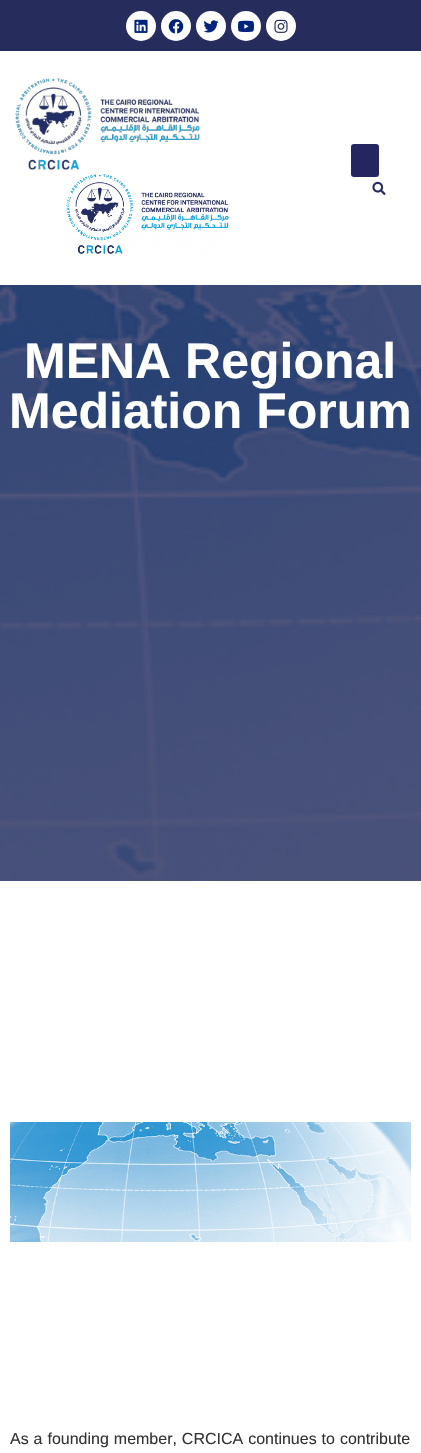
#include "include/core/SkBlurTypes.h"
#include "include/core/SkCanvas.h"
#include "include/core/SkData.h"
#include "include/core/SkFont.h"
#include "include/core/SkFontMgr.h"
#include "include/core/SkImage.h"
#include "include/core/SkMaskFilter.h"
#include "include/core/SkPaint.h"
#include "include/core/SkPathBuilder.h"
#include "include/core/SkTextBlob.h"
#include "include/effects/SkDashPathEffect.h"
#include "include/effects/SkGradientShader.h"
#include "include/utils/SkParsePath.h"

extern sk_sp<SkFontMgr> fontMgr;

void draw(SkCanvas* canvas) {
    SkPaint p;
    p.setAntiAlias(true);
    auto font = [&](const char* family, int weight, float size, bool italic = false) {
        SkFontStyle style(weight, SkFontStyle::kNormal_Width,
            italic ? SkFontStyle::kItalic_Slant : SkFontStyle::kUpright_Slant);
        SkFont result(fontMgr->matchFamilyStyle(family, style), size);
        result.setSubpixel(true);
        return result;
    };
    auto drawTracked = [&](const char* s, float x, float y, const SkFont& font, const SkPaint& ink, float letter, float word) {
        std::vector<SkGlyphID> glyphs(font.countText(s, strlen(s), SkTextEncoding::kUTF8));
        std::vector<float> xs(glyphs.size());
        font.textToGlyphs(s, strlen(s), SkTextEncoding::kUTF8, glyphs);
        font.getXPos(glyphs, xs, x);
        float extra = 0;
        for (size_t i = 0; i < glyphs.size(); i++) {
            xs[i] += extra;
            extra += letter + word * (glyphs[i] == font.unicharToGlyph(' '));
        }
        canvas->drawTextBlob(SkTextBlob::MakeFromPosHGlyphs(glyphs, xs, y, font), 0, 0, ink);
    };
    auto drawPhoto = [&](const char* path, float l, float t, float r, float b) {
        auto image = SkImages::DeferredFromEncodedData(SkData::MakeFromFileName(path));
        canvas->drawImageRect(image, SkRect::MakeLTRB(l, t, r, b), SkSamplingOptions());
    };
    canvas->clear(0xFFFFFFFF);
    p.setColor(0xFF262C5C);
    canvas->drawRect(SkRect::MakeLTRB(0, 0, 421, 51), p);
    p.setColor(0xFFFFFFFF);
    canvas->drawCircle(141, 26, 15, p);
    drawPhoto("media/1.png", 134, 19, 148, 33);
    canvas->drawCircle(176, 26, 15, p);
    drawPhoto("media/2.png", 168, 19, 184, 34);
    canvas->drawCircle(211, 26, 15, p);
    drawPhoto("media/3.png", 203, 20, 219, 33);
    canvas->drawCircle(246, 26, 15, p);
    drawPhoto("media/4.png", 238, 20, 254, 32);
    canvas->drawCircle(281, 26, 15, p);
    drawPhoto("media/5.png", 274, 19, 288, 33);
    drawPhoto("media/6.png", 15, 78, 200, 170);
    drawPhoto("media/7.png", 66, 174, 229, 254);
    p.setColor(0xFF25265F);
    canvas->drawRoundRect(SkRect::MakeLTRB(351, 144, 379, 177), 3, 3, p);
    drawPhoto("media/8.png", 372, 181, 386, 195);
    drawPhoto("media/9.png", 0, 285, 421, 881);
    auto font1 = font("Liberation Sans", 700, 50);
    p.setColor(0xFFFFFFFF);
    canvas->drawString("MENA Regional", 24, 378, font1, p);
    canvas->drawString("Mediation Forum", 9, 428, font1, p);
    drawPhoto("media/10.png", 10, 1122, 411, 1242);
    auto font2 = font("Liberation Sans", 400, 16);
    p.setColor(0xFF333333);
    drawTracked("As a founding member, CRCICA continues to contribute", 10, 1444, font2, p, 0, 0.5f);
}
